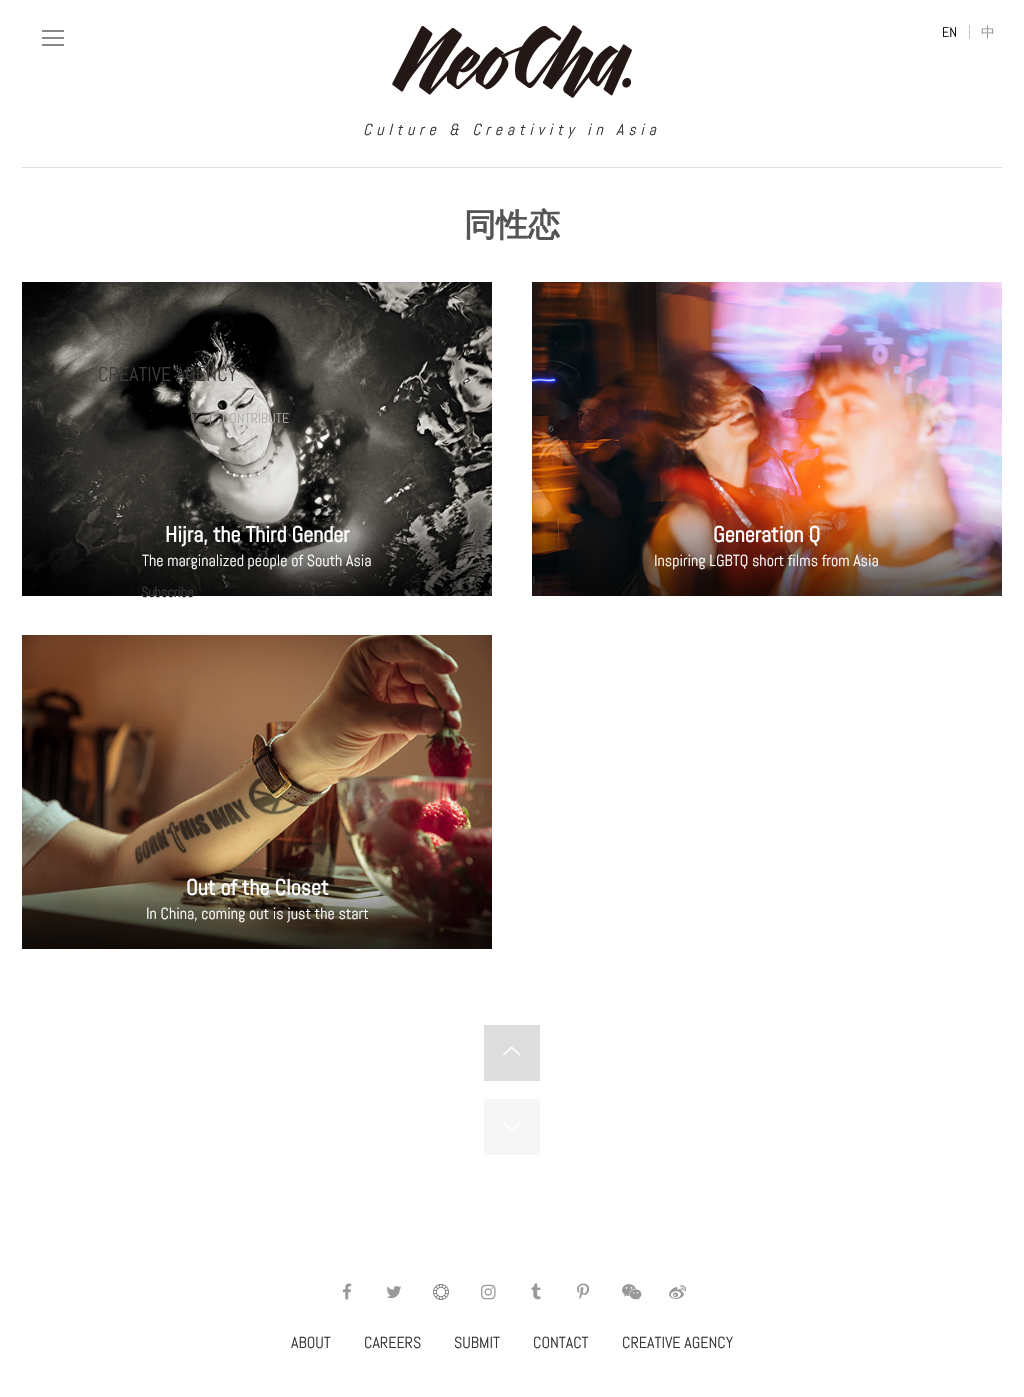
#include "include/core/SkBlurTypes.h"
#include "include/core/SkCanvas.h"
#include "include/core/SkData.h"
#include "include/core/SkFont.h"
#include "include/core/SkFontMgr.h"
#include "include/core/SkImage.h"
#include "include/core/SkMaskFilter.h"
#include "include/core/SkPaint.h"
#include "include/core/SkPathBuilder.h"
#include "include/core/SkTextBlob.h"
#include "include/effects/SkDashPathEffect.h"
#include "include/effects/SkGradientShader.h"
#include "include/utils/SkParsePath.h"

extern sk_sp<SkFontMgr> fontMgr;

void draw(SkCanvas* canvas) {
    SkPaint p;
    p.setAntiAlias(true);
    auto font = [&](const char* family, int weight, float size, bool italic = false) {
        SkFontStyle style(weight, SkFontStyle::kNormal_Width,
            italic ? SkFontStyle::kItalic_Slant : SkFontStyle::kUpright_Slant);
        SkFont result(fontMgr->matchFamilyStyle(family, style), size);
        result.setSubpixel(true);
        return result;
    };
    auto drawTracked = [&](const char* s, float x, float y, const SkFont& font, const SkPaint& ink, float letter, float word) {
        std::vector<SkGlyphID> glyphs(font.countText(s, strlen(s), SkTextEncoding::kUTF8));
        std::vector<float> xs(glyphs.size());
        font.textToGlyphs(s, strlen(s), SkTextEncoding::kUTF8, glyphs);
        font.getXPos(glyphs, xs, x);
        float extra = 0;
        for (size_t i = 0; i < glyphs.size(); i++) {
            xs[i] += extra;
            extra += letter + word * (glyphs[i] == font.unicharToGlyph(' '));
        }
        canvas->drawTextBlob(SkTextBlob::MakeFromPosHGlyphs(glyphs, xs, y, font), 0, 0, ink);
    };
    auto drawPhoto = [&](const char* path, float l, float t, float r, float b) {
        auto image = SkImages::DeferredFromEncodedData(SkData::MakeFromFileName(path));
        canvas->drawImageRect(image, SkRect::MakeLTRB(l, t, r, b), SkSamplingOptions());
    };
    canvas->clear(0xFFFFFFFF);
    {
        const struct { float l, t, r, b; SkColor color; } items[] = {
            {42, 30, 64, 32, 0xFF888888},
            {42, 37, 64, 39, 0xFF888888},
            {42, 44, 64, 46, 0xFF888888},
        };
        for (auto [l, t, r, b, color] : items) {
            p.setColor(color);
            canvas->drawRect(SkRect::MakeLTRB(l, t, r, b), p);
        }
    }
    auto font1 = font("Abel", 400, 14);
    p.setColor(0xFF000000);
    canvas->drawString("EN", 942, 37, font1, p);
    p.setColor(0xFFBBBBBB);
    canvas->drawString("|", 968, 36, font1, p);
    auto font2 = font("WenQuanYi Zen Hei", 500, 14);
    p.setColor(0xFF999999);
    canvas->drawString("中", 981, 37, font2, p);
    drawPhoto("media/1.png", 392, 25, 632, 98);
    auto font3 = font("Abel", 400, 16, true);
    p.setColor(0xFF333333);
    drawTracked("Culture & Creativity in Asia", 363, 135, font3, p, 4.8f, 0);
    drawPhoto("media/2.png", 22, 282, 492, 596);
    auto font4 = font("Abel", 400, 20);
    p.setColor(0xFF3F3E3B);
    canvas->drawString("CREATIVE AGENCY", 98, 381, font4, p);
    p.setColor(0xFF0F0F0E);
    canvas->drawString("IT", 189, 423, font1, p);
    p.setColor(0xFF7D7A75);
    canvas->drawString("|", 209, 423, font1, p);
    p.setColor(0xFFAFADA9);
    canvas->drawString("CONTRIBUTE", 222, 423, font1, p);
    auto font5 = font("Abel", 700, 14);
    p.setColor(0xFF333333);
    canvas->drawString("Subscribe", 141, 597, font5, p);
    p.setColor(0xFFDDDDDD);
    canvas->drawRect(SkRect::MakeLTRB(22, 167, 1002, 168), p);
    auto font6 = font("WenQuanYi Zen Hei", 700, 32);
    p.setColor(0xFF555555);
    canvas->drawString("同性恋", 464, 236, font6, p);
    auto font7 = font("Abel", 700, 22);
    p.setColor(0xFFFFFFFF);
    canvas->drawString("Hijra, the Third Gender", 165, 542, font7, p);
    auto font8 = font("Abel", 400, 16);
    canvas->drawString("The marginalized people of South Asia", 142, 566, font8, p);
    drawPhoto("media/3.png", 532, 282, 1002, 596);
    canvas->drawString("Generation Q", 713, 542, font7, p);
    canvas->drawString("Inspiring LGBTQ short films from Asia", 654, 566, font8, p);
    drawPhoto("media/4.png", 22, 635, 492, 949);
    canvas->drawString("Out of the Closet", 186, 895, font7, p);
    canvas->drawString("In China, coming out is just the start", 146, 919, font8, p);
    p.setColor(0xFFF6F6F6);
    canvas->drawRect(SkRect::MakeLTRB(484, 1099, 540, 1155), p);
    drawPhoto("media/5.png", 503, 1122, 520, 1132);
    p.setColor(0xFFDDDDDD);
    canvas->drawRect(SkRect::MakeLTRB(484, 1025, 540, 1081), p);
    drawPhoto("media/6.png", 503, 1046, 520, 1056);
    drawPhoto("media/7.png", 342, 1283, 352, 1300);
    drawPhoto("media/8.png", 386, 1286, 402, 1299);
    drawPhoto("media/9.png", 433, 1284, 449, 1300);
    drawPhoto("media/10.png", 481, 1284, 496, 1300);
    drawPhoto("media/11.png", 531, 1283, 541, 1300);
    drawPhoto("media/12.png", 577, 1283, 590, 1300);
    drawPhoto("media/13.png", 622, 1284, 642, 1300);
    drawPhoto("media/14.png", 669, 1285, 686, 1299);
    p.setColor(0xFF333333);
    {
        const struct { const char* s; float x, y; } items[] = {
            {"ABOUT", 291, 1348},
            {"CAREERS", 364, 1348},
            {"SUBMIT", 454, 1348},
            {"CONTACT", 533, 1348},
            {"CREATIVE AGENCY", 622, 1348},
        };
        for (auto [s, x, y] : items) {
            canvas->drawString(s, x, y, font8, p);
        }
    }
}
